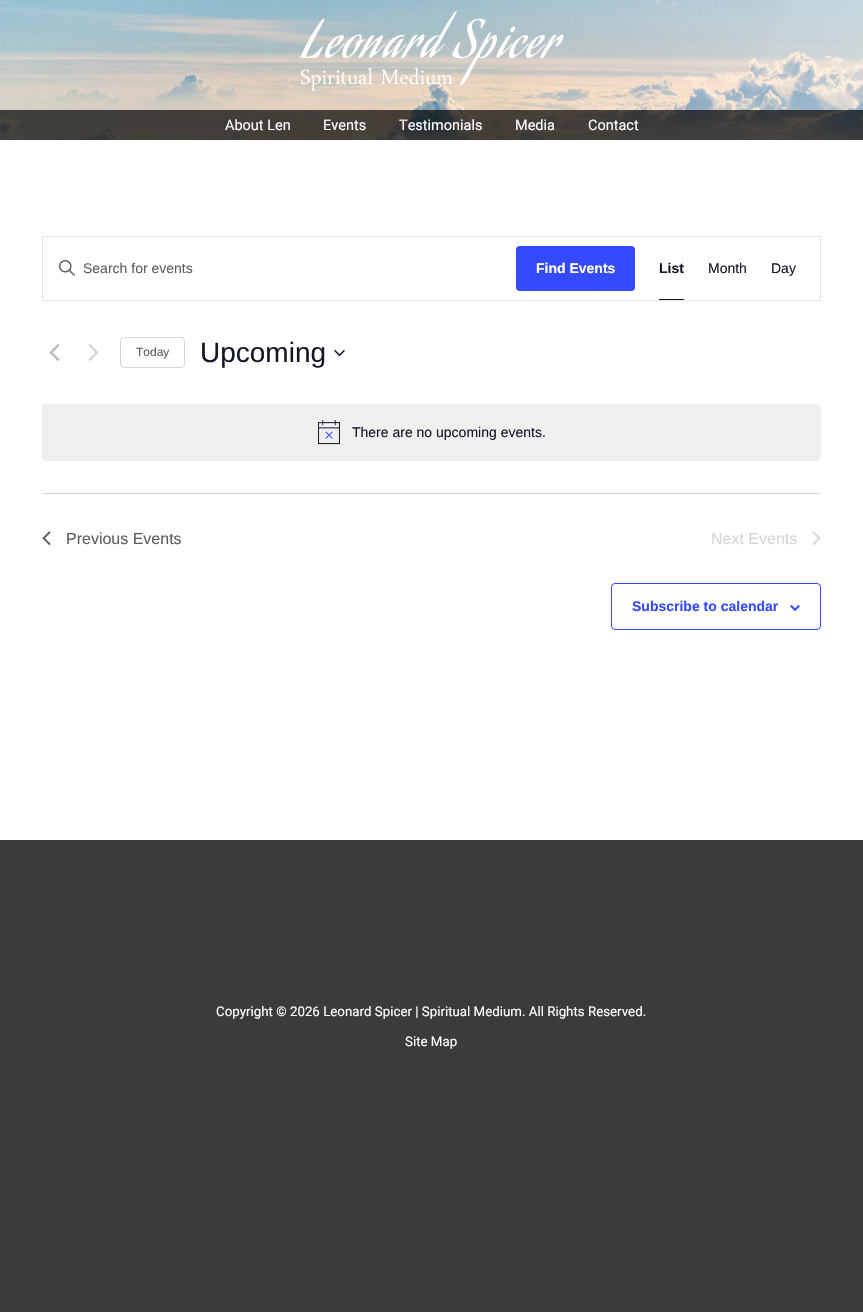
#include "include/core/SkBlurTypes.h"
#include "include/core/SkCanvas.h"
#include "include/core/SkData.h"
#include "include/core/SkFont.h"
#include "include/core/SkFontMgr.h"
#include "include/core/SkImage.h"
#include "include/core/SkMaskFilter.h"
#include "include/core/SkPaint.h"
#include "include/core/SkPathBuilder.h"
#include "include/core/SkTextBlob.h"
#include "include/effects/SkDashPathEffect.h"
#include "include/effects/SkGradientShader.h"
#include "include/utils/SkParsePath.h"

extern sk_sp<SkFontMgr> fontMgr;

void draw(SkCanvas* canvas) {
    SkPaint p;
    p.setAntiAlias(true);
    auto font = [&](const char* family, int weight, float size, bool italic = false) {
        SkFontStyle style(weight, SkFontStyle::kNormal_Width,
            italic ? SkFontStyle::kItalic_Slant : SkFontStyle::kUpright_Slant);
        SkFont result(fontMgr->matchFamilyStyle(family, style), size);
        result.setSubpixel(true);
        return result;
    };
    auto drawPhoto = [&](const char* path, float l, float t, float r, float b) {
        auto image = SkImages::DeferredFromEncodedData(SkData::MakeFromFileName(path));
        canvas->drawImageRect(image, SkRect::MakeLTRB(l, t, r, b), SkSamplingOptions());
    };
    canvas->clear(0xFF3C3B3B);
    drawPhoto("media/1.png", 0, 0, 863, 140);
    drawPhoto("media/2.png", 300, 10, 564, 91);
    p.setColor(0xB3000000);
    canvas->drawRect(SkRect::MakeLTRB(0, 110, 863, 140), p);
    auto font1 = font("Roboto", 400, 14.5f);
    p.setColor(0xFFFFFFFF);
    {
        const struct { const char* s; float x, y; } items[] = {
            {"About Len", 225, 130},
            {"Events", 323, 130},
            {"Testimonials", 399, 130},
            {"Media", 515, 130},
            {"Contact", 588, 130},
        };
        for (auto [s, x, y] : items) {
            canvas->drawString(s, x, y, font1, p);
        }
    }
    canvas->drawRect(SkRect::MakeLTRB(0, 140, 863, 840), p);
    p.setStyle(SkPaint::kStroke_Style);
    p.setStrokeWidth(1);
    p.setColor(0xFFE4E4E4);
    canvas->drawRect(SkRect::MakeLTRB(42.5f, 236.5f, 820.5f, 300.5f), p);
    drawPhoto("media/3.png", 59, 260, 75, 276);
    auto font2 = font("Liberation Sans", 400, 14);
    p.setStyle(SkPaint::kFill_Style);
    p.setColor(0xFF5D5D5D);
    canvas->drawString("Search for events", 83, 273, font2, p);
    p.setColor(0xFF334AFF);
    canvas->drawRoundRect(SkRect::MakeLTRB(516, 246, 635, 291), 4, 4, p);
    auto font3 = font("Liberation Sans", 700, 14);
    p.setColor(0xFFFFFFFF);
    canvas->drawString("Find Events", 536, 273, font3, p);
    p.setColor(0xFF141827);
    canvas->drawString("List", 659, 273, font3, p);
    canvas->drawRect(SkRect::MakeLTRB(659, 299, 684, 300), p);
    canvas->drawString("Month", 708, 273, font2, p);
    canvas->drawString("Day", 771, 273, font2, p);
    drawPhoto("media/4.png", 49, 344, 60, 361);
    drawPhoto("media/5.png", 88, 344, 99, 361);
    p.setStyle(SkPaint::kStroke_Style);
    p.setColor(0xFFD5D5D5);
    canvas->drawRoundRect(SkRect::MakeLTRB(120.5f, 337.5f, 184.5f, 367.5f), 3.5f, 3.5f, p);
    auto font4 = font("Liberation Sans", 400, 12);
    p.setStyle(SkPaint::kFill_Style);
    p.setColor(0xFF5D5D5D);
    canvas->drawString("Today", 136, 356, font4, p);
    auto font5 = font("Liberation Sans", 400, 28);
    p.setColor(0xFF141827);
    canvas->drawString("Upcoming", 200, 362, font5, p);
    drawPhoto("media/6.png", 334, 349, 345, 357);
    p.setColor(0xFFEFEFF0);
    canvas->drawRoundRect(SkRect::MakeLTRB(42, 404, 821, 461), 4, 4, p);
    drawPhoto("media/7.png", 318, 420, 340, 445);
    p.setColor(0xFF141827);
    canvas->drawString("There are no upcoming events.", 352, 437, font2, p);
    p.setColor(0xFFD5D5D5);
    canvas->drawRect(SkRect::MakeLTRB(42, 493, 821, 494), p);
    drawPhoto("media/8.png", 42, 531, 51, 546);
    auto font6 = font("Liberation Sans", 400, 16);
    p.setColor(0xFF5D5D5D);
    canvas->drawString("Previous Events", 66, 544, font6, p);
    p.setColor(0xFFD5D5D5);
    canvas->drawString("Next Events", 711, 544, font6, p);
    drawPhoto("media/9.png", 812, 531, 821, 545);
    p.setStyle(SkPaint::kStroke_Style);
    p.setColor(0xFF334AFF);
    canvas->drawRoundRect(SkRect::MakeLTRB(611.5f, 583.5f, 820.5f, 629.5f), 3.5f, 3.5f, p);
    p.setStyle(SkPaint::kFill_Style);
    canvas->drawString("Subscribe to calendar", 632, 611, font3, p);
    drawPhoto("media/10.png", 790, 605, 800, 611);
    auto font7 = font("Roboto", 400, 13.3f);
    p.setColor(0xFFFFFFFF);
    canvas->drawString("Copyright © 2026 Leonard Spicer | Spiritual Medium. All Rights Reserved.", 216, 1016, font7, p);
    canvas->drawString("Site Map", 405, 1046, font7, p);
}
